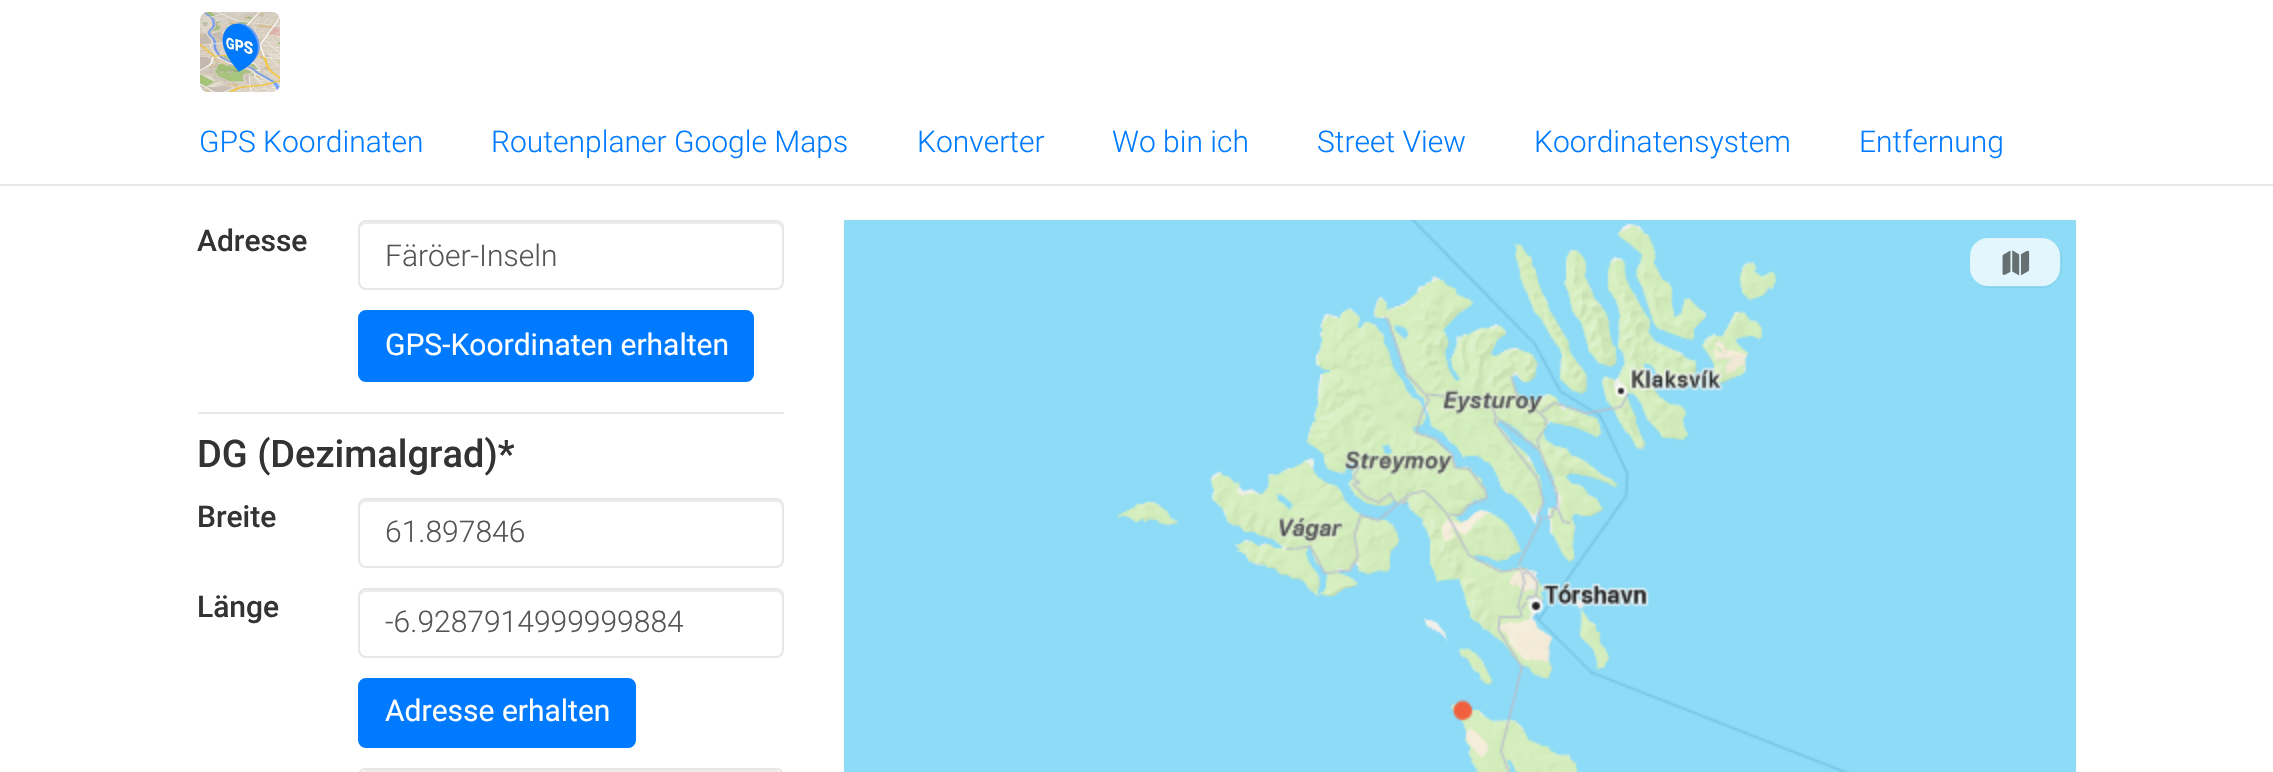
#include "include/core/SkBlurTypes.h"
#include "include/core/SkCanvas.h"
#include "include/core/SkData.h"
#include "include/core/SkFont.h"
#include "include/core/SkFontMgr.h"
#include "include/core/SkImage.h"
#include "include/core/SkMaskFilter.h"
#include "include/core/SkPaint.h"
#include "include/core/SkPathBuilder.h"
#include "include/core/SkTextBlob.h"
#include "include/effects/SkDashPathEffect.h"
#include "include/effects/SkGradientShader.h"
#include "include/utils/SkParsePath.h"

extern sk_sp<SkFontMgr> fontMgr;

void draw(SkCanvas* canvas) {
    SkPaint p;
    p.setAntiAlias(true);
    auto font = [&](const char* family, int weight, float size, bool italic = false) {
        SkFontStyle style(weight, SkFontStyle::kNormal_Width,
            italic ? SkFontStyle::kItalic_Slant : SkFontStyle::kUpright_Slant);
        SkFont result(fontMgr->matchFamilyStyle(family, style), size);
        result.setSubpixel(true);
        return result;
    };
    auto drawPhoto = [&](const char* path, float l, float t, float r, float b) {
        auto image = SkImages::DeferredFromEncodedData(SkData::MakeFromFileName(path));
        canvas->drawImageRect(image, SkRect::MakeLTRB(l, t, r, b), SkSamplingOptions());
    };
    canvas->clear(0xFFFFFFFF);
    p.setColor(0xFFE7E7E7);
    canvas->drawRect(SkRect::MakeLTRB(0, 184, 2273, 186), p);
    drawPhoto("media/1.png", 200, 12, 280, 92);
    auto font1 = font("Roboto", 300, 30);
    p.setColor(0xFF007BFF);
    {
        const struct { const char* s; float x, y; } items[] = {
            {"GPS Koordinaten", 199, 152},
            {"Routenplaner Google Maps", 491, 152},
            {"Konverter", 917, 152},
            {"Wo bin ich", 1112, 152},
            {"Street View", 1317, 152},
            {"Koordinatensystem", 1534, 152},
            {"Entfernung", 1859, 152},
        };
        for (auto [s, x, y] : items) {
            canvas->drawString(s, x, y, font1, p);
        }
    }
    p.setColor(0xFFE7E7E7);
    canvas->drawRect(SkRect::MakeLTRB(198, 412, 784, 414), p);
    auto font2 = font("Roboto", 500, 30);
    p.setColor(0xFF333333);
    canvas->drawString("Adresse", 197, 251, font2, p);
    p.setColor(0xFFECECEC);
    canvas->drawPath(SkPathBuilder().moveTo(366, 224).lineTo(776, 224).cubicTo(779, 224, 782, 227, 782, 230).lineTo(782, 228).cubicTo(782, 225, 779, 222, 776, 222).lineTo(366, 222).cubicTo(363, 222, 360, 225, 360, 228).lineTo(360, 230).cubicTo(360, 227, 363, 224, 366, 224).close().detach(), p);
    p.setStyle(SkPaint::kStroke_Style);
    p.setStrokeWidth(2);
    p.setColor(0xFFE7E7E7);
    canvas->drawRoundRect(SkRect::MakeLTRB(359, 221, 783, 289), 7, 7, p);
    p.setStyle(SkPaint::kFill_Style);
    p.setColor(0xFF555555);
    canvas->drawString("Färöer-Inseln", 385, 266, font1, p);
    p.setColor(0xFF007BFF);
    canvas->drawRoundRect(SkRect::MakeLTRB(359, 311, 753, 381), 7, 7, p);
    p.setStyle(SkPaint::kStroke_Style);
    canvas->drawRoundRect(SkRect::MakeLTRB(359, 311, 753, 381), 7, 7, p);
    auto font3 = font("Roboto", 400, 30);
    p.setStyle(SkPaint::kFill_Style);
    p.setColor(0xFFFFFFFF);
    canvas->drawString("GPS-Koordinaten erhalten", 385, 355, font3, p);
    auto font4 = font("Roboto", 500, 38);
    p.setColor(0xFF333333);
    canvas->drawString("DG (Dezimalgrad)*", 197, 467, font4, p);
    canvas->drawString("Breite", 197, 527, font2, p);
    p.setColor(0xFFECECEC);
    canvas->drawPath(SkPathBuilder().moveTo(366, 502).lineTo(776, 502).cubicTo(779, 502, 782, 505, 782, 508).lineTo(782, 506).cubicTo(782, 503, 779, 500, 776, 500).lineTo(366, 500).cubicTo(363, 500, 360, 503, 360, 506).lineTo(360, 508).cubicTo(360, 505, 363, 502, 366, 502).close().detach(), p);
    p.setStyle(SkPaint::kStroke_Style);
    p.setColor(0xFFE7E7E7);
    canvas->drawRoundRect(SkRect::MakeLTRB(359, 499, 783, 567), 7, 7, p);
    p.setStyle(SkPaint::kFill_Style);
    p.setColor(0xFF555555);
    canvas->drawString("61.897846", 385, 542, font1, p);
    p.setColor(0xFF333333);
    canvas->drawString("Länge", 197, 617, font2, p);
    p.setColor(0xFFECECEC);
    canvas->drawPath(SkPathBuilder().moveTo(366, 592).lineTo(776, 592).cubicTo(779, 592, 782, 595, 782, 598).lineTo(782, 596).cubicTo(782, 593, 779, 590, 776, 590).lineTo(366, 590).cubicTo(363, 590, 360, 593, 360, 596).lineTo(360, 598).cubicTo(360, 595, 363, 592, 366, 592).close().detach(), p);
    p.setStyle(SkPaint::kStroke_Style);
    p.setColor(0xFFE7E7E7);
    canvas->drawRoundRect(SkRect::MakeLTRB(359, 589, 783, 657), 7, 7, p);
    p.setStyle(SkPaint::kFill_Style);
    p.setColor(0xFF555555);
    canvas->drawString("-6.9287914999999884", 385, 632, font1, p);
    p.setColor(0xFF007BFF);
    canvas->drawRoundRect(SkRect::MakeLTRB(359, 679, 635, 747), 7, 7, p);
    p.setStyle(SkPaint::kStroke_Style);
    canvas->drawRoundRect(SkRect::MakeLTRB(359, 679, 635, 747), 7, 7, p);
    p.setStyle(SkPaint::kFill_Style);
    p.setColor(0xFFFFFFFF);
    canvas->drawString("Adresse erhalten", 385, 721, font3, p);
    p.setColor(0xFFECECEC);
    canvas->drawPath(SkPathBuilder().moveTo(366, 772).lineTo(776, 772).cubicTo(779, 772, 782, 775, 782, 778).lineTo(782, 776).cubicTo(782, 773, 779, 770, 776, 770).lineTo(366, 770).cubicTo(363, 770, 360, 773, 360, 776).lineTo(360, 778).cubicTo(360, 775, 363, 772, 366, 772).close().detach(), p);
    p.setStyle(SkPaint::kStroke_Style);
    p.setColor(0xFFE7E7E7);
    canvas->drawRoundRect(SkRect::MakeLTRB(359, 769, 783, 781), 7, 7, p);
    drawPhoto("media/2.png", 844, 220, 2076, 772);
    p.setStrokeWidth(1);
    p.setColor(0xFF86D0EA);
    canvas->drawRoundRect(SkRect::MakeLTRB(1970.5f, 238.5f, 2061.5f, 287.5f), 19.5f, 19.5f, p);
    p.setStyle(SkPaint::kFill_Style);
    p.setColor(0xBFFFFFFF);
    canvas->drawRoundRect(SkRect::MakeLTRB(1970, 238, 2060, 286), 18, 18, p);
    drawPhoto("media/3.png", 2002, 250, 2030, 276);
    drawPhoto("media/4.png", 1451, 699, 1474, 721);
}
